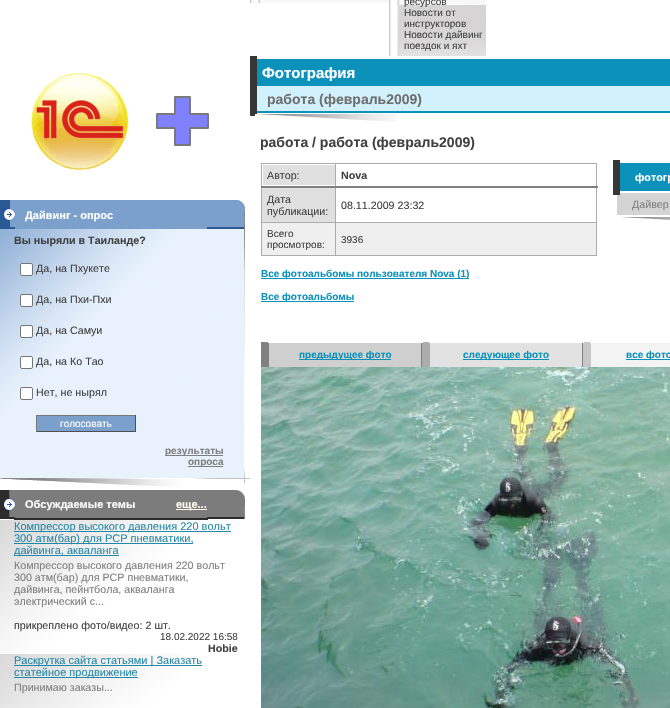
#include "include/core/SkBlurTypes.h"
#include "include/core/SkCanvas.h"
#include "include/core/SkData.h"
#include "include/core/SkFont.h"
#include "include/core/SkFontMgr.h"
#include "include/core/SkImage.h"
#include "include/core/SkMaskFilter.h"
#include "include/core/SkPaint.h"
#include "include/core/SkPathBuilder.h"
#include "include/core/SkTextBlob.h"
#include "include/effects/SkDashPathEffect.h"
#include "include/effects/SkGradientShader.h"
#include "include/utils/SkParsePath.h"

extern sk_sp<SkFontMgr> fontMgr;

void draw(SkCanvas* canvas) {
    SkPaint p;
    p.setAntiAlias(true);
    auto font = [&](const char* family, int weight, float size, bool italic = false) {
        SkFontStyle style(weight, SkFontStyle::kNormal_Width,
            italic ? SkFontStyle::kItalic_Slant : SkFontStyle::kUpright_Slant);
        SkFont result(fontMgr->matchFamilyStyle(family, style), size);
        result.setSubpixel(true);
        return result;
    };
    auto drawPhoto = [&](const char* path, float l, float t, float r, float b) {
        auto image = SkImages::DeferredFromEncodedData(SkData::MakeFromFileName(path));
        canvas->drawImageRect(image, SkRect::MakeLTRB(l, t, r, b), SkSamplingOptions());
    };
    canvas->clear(0xFFFFFFFF);
    drawPhoto("media/1.png", 250, 0, 389, 3);
    drawPhoto("media/2.png", 389, 0, 486, 56);
    auto font1 = font("Liberation Sans", 400, 10);
    p.setColor(0xFF414141);
    {
        const struct { const char* s; float x, y; } items[] = {
            {"ресурсов", 404, 5},
            {"Новости от", 404, 16},
            {"инструкторов", 404, 27},
            {"Новости дайвинг", 404, 38},
            {"поездок и яхт", 404, 49},
        };
        for (auto [s, x, y] : items) {
            canvas->drawString(s, x, y, font1, p);
        }
    }
    drawPhoto("media/3.png", 31, 72, 209, 171);
    p.setColor(0xFF7BA0CC);
    canvas->drawRect(SkRect::MakeLTRB(15, 200, 207, 229), p);
    drawPhoto("media/4.png", 0, 200, 15, 229);
    auto font2 = font("Liberation Sans", 700, 11);
    p.setColor(0xFFFFFFFF);
    canvas->drawString("Дайвинг - опрос", 25, 219, font2, p);
    drawPhoto("media/5.png", 207, 200, 250, 229);
    drawPhoto("media/6.png", 0, 229, 245, 467);
    auto font3 = font("Liberation Sans", 700, 10.7f);
    p.setColor(0xFF414141);
    canvas->drawString("Вы ныряли в Таиланде?", 14, 244, font3, p);
    p.setColor(0xFFFFFFFF);
    canvas->drawRoundRect(SkRect::MakeLTRB(20.5f, 263.5f, 32.5f, 275.5f), 1.5f, 1.5f, p);
    p.setStyle(SkPaint::kStroke_Style);
    p.setStrokeWidth(1);
    p.setColor(0xFF767676);
    canvas->drawRoundRect(SkRect::MakeLTRB(20.5f, 263.5f, 32.5f, 275.5f), 1.5f, 1.5f, p);
    auto font4 = font("Liberation Sans", 400, 10.7f);
    p.setStyle(SkPaint::kFill_Style);
    p.setColor(0xFF414141);
    canvas->drawString("Да, на Пхукете", 36, 272, font4, p);
    p.setColor(0xFFFFFFFF);
    canvas->drawRoundRect(SkRect::MakeLTRB(20.5f, 294.5f, 32.5f, 306.5f), 1.5f, 1.5f, p);
    p.setStyle(SkPaint::kStroke_Style);
    p.setColor(0xFF767676);
    canvas->drawRoundRect(SkRect::MakeLTRB(20.5f, 294.5f, 32.5f, 306.5f), 1.5f, 1.5f, p);
    p.setStyle(SkPaint::kFill_Style);
    p.setColor(0xFF414141);
    canvas->drawString("Да, на Пхи-Пхи", 36, 303, font4, p);
    p.setColor(0xFFFFFFFF);
    canvas->drawRoundRect(SkRect::MakeLTRB(20.5f, 325.5f, 32.5f, 337.5f), 1.5f, 1.5f, p);
    p.setStyle(SkPaint::kStroke_Style);
    p.setColor(0xFF767676);
    canvas->drawRoundRect(SkRect::MakeLTRB(20.5f, 325.5f, 32.5f, 337.5f), 1.5f, 1.5f, p);
    p.setStyle(SkPaint::kFill_Style);
    p.setColor(0xFF414141);
    canvas->drawString("Да, на Самуи", 36, 334, font4, p);
    p.setColor(0xFFFFFFFF);
    canvas->drawRoundRect(SkRect::MakeLTRB(20.5f, 356.5f, 32.5f, 368.5f), 1.5f, 1.5f, p);
    p.setStyle(SkPaint::kStroke_Style);
    p.setColor(0xFF767676);
    canvas->drawRoundRect(SkRect::MakeLTRB(20.5f, 356.5f, 32.5f, 368.5f), 1.5f, 1.5f, p);
    p.setStyle(SkPaint::kFill_Style);
    p.setColor(0xFF414141);
    canvas->drawString("Да, на Ко Тао", 36, 365, font4, p);
    p.setColor(0xFFFFFFFF);
    canvas->drawRoundRect(SkRect::MakeLTRB(20.5f, 387.5f, 32.5f, 399.5f), 1.5f, 1.5f, p);
    p.setStyle(SkPaint::kStroke_Style);
    p.setColor(0xFF767676);
    canvas->drawRoundRect(SkRect::MakeLTRB(20.5f, 387.5f, 32.5f, 399.5f), 1.5f, 1.5f, p);
    p.setStyle(SkPaint::kFill_Style);
    p.setColor(0xFF414141);
    canvas->drawString("Нет, не нырял", 36, 396, font4, p);
    {
        const struct { float l, t, r, b; SkColor color; } items[] = {
            {37, 416, 135, 431, 0xFF7BA0CC},
            {36, 415, 136, 416, 0xFF787878},
            {135, 415, 136, 432, 0xFF505050},
            {36, 431, 136, 432, 0xFF505050},
            {36, 415, 37, 432, 0xFF787878},
        };
        for (auto [l, t, r, b, color] : items) {
            p.setColor(color);
            canvas->drawRect(SkRect::MakeLTRB(l, t, r, b), p);
        }
    }
    p.setColor(0xFFFFFFFF);
    canvas->drawString("голосовать", 60, 427, font1, p);
    p.setColor(0xFF808080);
    canvas->drawRect(SkRect::MakeLTRB(165, 455, 223, 456), p);
    auto font5 = font("Liberation Sans", 700, 10);
    canvas->drawString("результаты", 165, 454, font5, p);
    canvas->drawRect(SkRect::MakeLTRB(188, 466, 223, 467), p);
    canvas->drawString("опроса", 188, 465, font5, p);
    drawPhoto("media/7.png", 0, 467, 250, 487);
    p.setColor(0xFF7C7C7C);
    canvas->drawRect(SkRect::MakeLTRB(15, 490, 207, 518), p);
    p.setColor(0xFF2C2C2C);
    canvas->drawRect(SkRect::MakeLTRB(14, 518, 208, 520), p);
    drawPhoto("media/8.png", 0, 490, 15, 519);
    p.setColor(0xFFFFFFFF);
    canvas->drawString("Обсуждаемые темы", 25, 508, font2, p);
    p.setColor(0xFFFFFFF0);
    canvas->drawRect(SkRect::MakeLTRB(176, 509, 207, 510), p);
    canvas->drawString("еще...", 176, 508, font2, p);
    drawPhoto("media/9.png", 207, 490, 250, 519);
    drawPhoto("media/10.png", 0, 520, 181, 654);
    p.setColor(0xFF2487A6);
    canvas->drawRect(SkRect::MakeLTRB(14, 531, 231, 532), p);
    auto font6 = font("Liberation Sans", 400, 11);
    canvas->drawString("Компрессор высокого давления 220 вольт", 14, 530, font6, p);
    canvas->drawRect(SkRect::MakeLTRB(14, 543, 193, 544), p);
    canvas->drawString("300 атм(бар) для PCP пневматики,", 14, 542, font6, p);
    canvas->drawRect(SkRect::MakeLTRB(14, 555, 119, 556), p);
    canvas->drawString("дайвинга, акваланга", 14, 554, font6, p);
    p.setColor(0xFF808080);
    {
        const struct { const char* s; float x, y; } items[] = {
            {"Компрессор высокого давления 220 вольт", 14, 569},
            {"300 атм(бар) для PCP пневматики,", 14, 581},
            {"дайвинга, пейнтбола, акваланга", 14, 593},
            {"электрический c...", 14, 605},
        };
        for (auto [s, x, y] : items) {
            canvas->drawString(s, x, y, font4, p);
        }
    }
    p.setColor(0xFF414141);
    canvas->drawString("прикреплено фото/видео: 2 шт.", 14, 629, font4, p);
    canvas->drawString("18.02.2022 16:58", 160, 640, font1, p);
    canvas->drawString("Hobie", 208, 652, font3, p);
    drawPhoto("media/11.png", 0, 654, 181, 708);
    p.setColor(0xFF2487A6);
    canvas->drawRect(SkRect::MakeLTRB(14, 665, 202, 666), p);
    canvas->drawString("Раскрутка сайта статьями | Заказать", 14, 664, font6, p);
    canvas->drawRect(SkRect::MakeLTRB(14, 677, 138, 678), p);
    canvas->drawString("статейное продвижение", 14, 676, font6, p);
    p.setColor(0xFF808080);
    canvas->drawString("Принимаю заказы...", 14, 691, font4, p);
    p.setColor(0xFF0C91BB);
    canvas->drawRect(SkRect::MakeLTRB(257, 59, 670, 86), p);
    p.setColor(0xFF373737);
    canvas->drawRect(SkRect::MakeLTRB(250, 56, 257, 90), p);
    auto font7 = font("Liberation Sans", 700, 15);
    p.setColor(0xFFFFFFFF);
    canvas->drawString("Фотография", 262, 78, font7, p);
    {
        const struct { float l, t, r, b; SkColor color; } items[] = {
            {257, 86, 670, 111, 0xFFD1F1FC},
            {253, 111, 670, 113, 0xFF0C91BB},
            {250, 83, 257, 116, 0xFF373737},
        };
        for (auto [l, t, r, b, color] : items) {
            p.setColor(color);
            canvas->drawRect(SkRect::MakeLTRB(l, t, r, b), p);
        }
    }
    auto font8 = font("Liberation Sans", 700, 14);
    p.setColor(0xFF6F6F6F);
    canvas->drawString("работа (февраль2009)", 267, 104, font8, p);
    drawPhoto("media/12.png", 255, 114, 396, 122);
    p.setColor(0xFF414141);
    canvas->drawString("работа / работа (февраль2009)", 260, 147, font8, p);
    {
        const struct { float l, t, r, b; SkColor color; } items[] = {
            {263, 165, 335, 185, 0xFFE0E0E0},
            {335, 163, 597, 164, 0xFFACACAC},
            {335, 222, 597, 223, 0xFFACACAC},
            {262, 223, 596, 255, 0xFFEFEFEF},
            {596, 187, 597, 256, 0xFFACACAC},
            {335, 255, 597, 256, 0xFFACACAC},
            {335, 222, 336, 256, 0xFFACACAC},
            {261, 222, 336, 223, 0xFFACACAC},
            {335, 187, 336, 223, 0xFFACACAC},
            {335, 163, 336, 188, 0xFFACACAC},
            {261, 163, 336, 164, 0xFFACACAC},
            {261, 255, 336, 256, 0xFFACACAC},
            {261, 187, 262, 256, 0xFFACACAC},
            {261, 163, 262, 188, 0xFFACACAC},
        };
        for (auto [l, t, r, b, color] : items) {
            p.setColor(color);
            canvas->drawRect(SkRect::MakeLTRB(l, t, r, b), p);
        }
    }
    p.setColor(0xFF414141);
    canvas->drawString("Автор:", 267, 179, font4, p);
    p.setColor(0xFFACACAC);
    canvas->drawRect(SkRect::MakeLTRB(596, 163, 597, 188), p);
    p.setColor(0xFF808080);
    canvas->drawRect(SkRect::MakeLTRB(261, 186, 598, 188), p);
    p.setColor(0xFF414141);
    canvas->drawString("Nova", 341, 179, font3, p);
    p.setColor(0xFFE0E0E0);
    canvas->drawRect(SkRect::MakeLTRB(262, 188, 335, 222), p);
    p.setColor(0xFF414141);
    {
        const struct { const char* s; float x, y; } items[] = {
            {"Дата", 267, 203},
            {"публикации:", 267, 215},
            {"08.11.2009 23:32", 341, 209},
        };
        for (auto [s, x, y] : items) {
            canvas->drawString(s, x, y, font4, p);
        }
    }
    {
        const struct { const char* s; float x, y; } items[] = {
            {"Всего", 267, 237},
            {"просмотров:", 267, 248},
            {"3936", 341, 243},
        };
        for (auto [s, x, y] : items) {
            canvas->drawString(s, x, y, font1, p);
        }
    }
    p.setColor(0xFF0C91BB);
    canvas->drawRect(SkRect::MakeLTRB(261, 278, 469, 279), p);
    canvas->drawString("Все фотоальбомы пользователя Nova (1)", 261, 277, font5, p);
    canvas->drawRect(SkRect::MakeLTRB(261, 301, 354, 302), p);
    canvas->drawString("Все фотоальбомы", 261, 300, font5, p);
    {
        const struct { float l, t, r, b; SkColor color; } items[] = {
            {620, 163, 670, 191, 0xFF0C91BB},
            {617, 193, 670, 215, 0xFFD4D4D4},
            {613, 160, 620, 195, 0xFF373737},
        };
        for (auto [l, t, r, b, color] : items) {
            p.setColor(color);
            canvas->drawRect(SkRect::MakeLTRB(l, t, r, b), p);
        }
    }
    p.setColor(0xFFFFFFFF);
    canvas->drawString("фотогр", 635, 181, font3, p);
    p.setColor(0xFF808080);
    canvas->drawString("Дайвер", 632, 208, font4, p);
    drawPhoto("media/13.png", 621, 217, 670, 220);
    {
        const struct { float l, t, r, b; SkColor color; } items[] = {
            {261, 342, 269, 367, 0xFF808080},
            {269, 343, 421, 367, 0xFFCFCFCF},
            {421, 341, 422, 367, 0xFF808080},
            {422, 342, 430, 367, 0xFFACACAC},
            {268, 341, 423, 343, 0xFFFFFFFF},
            {299, 359, 391, 360, 0xFF0C91BB},
        };
        for (auto [l, t, r, b, color] : items) {
            p.setColor(color);
            canvas->drawRect(SkRect::MakeLTRB(l, t, r, b), p);
        }
    }
    canvas->drawString("предыдущее фото", 299, 358, font5, p);
    {
        const struct { float l, t, r, b; SkColor color; } items[] = {
            {430, 343, 582, 367, 0xFFE2E2E2},
            {582, 341, 583, 367, 0xFF808080},
            {583, 342, 591, 367, 0xFFC8C8C8},
            {429, 341, 584, 343, 0xFFFFFFFF},
            {463, 359, 549, 360, 0xFF0C91BB},
        };
        for (auto [l, t, r, b, color] : items) {
            p.setColor(color);
            canvas->drawRect(SkRect::MakeLTRB(l, t, r, b), p);
        }
    }
    canvas->drawString("следующее фото", 463, 358, font5, p);
    {
        const struct { float l, t, r, b; SkColor color; } items[] = {
            {591, 343, 670, 367, 0xFFF3F3F3},
            {590, 342, 591, 343, 0xFFFFFFFF},
            {626, 359, 670, 360, 0xFF0C91BB},
        };
        for (auto [l, t, r, b, color] : items) {
            p.setColor(color);
            canvas->drawRect(SkRect::MakeLTRB(l, t, r, b), p);
        }
    }
    canvas->drawString("все фото", 626, 358, font5, p);
    drawPhoto("media/14.png", 261, 367, 670, 708);
}
